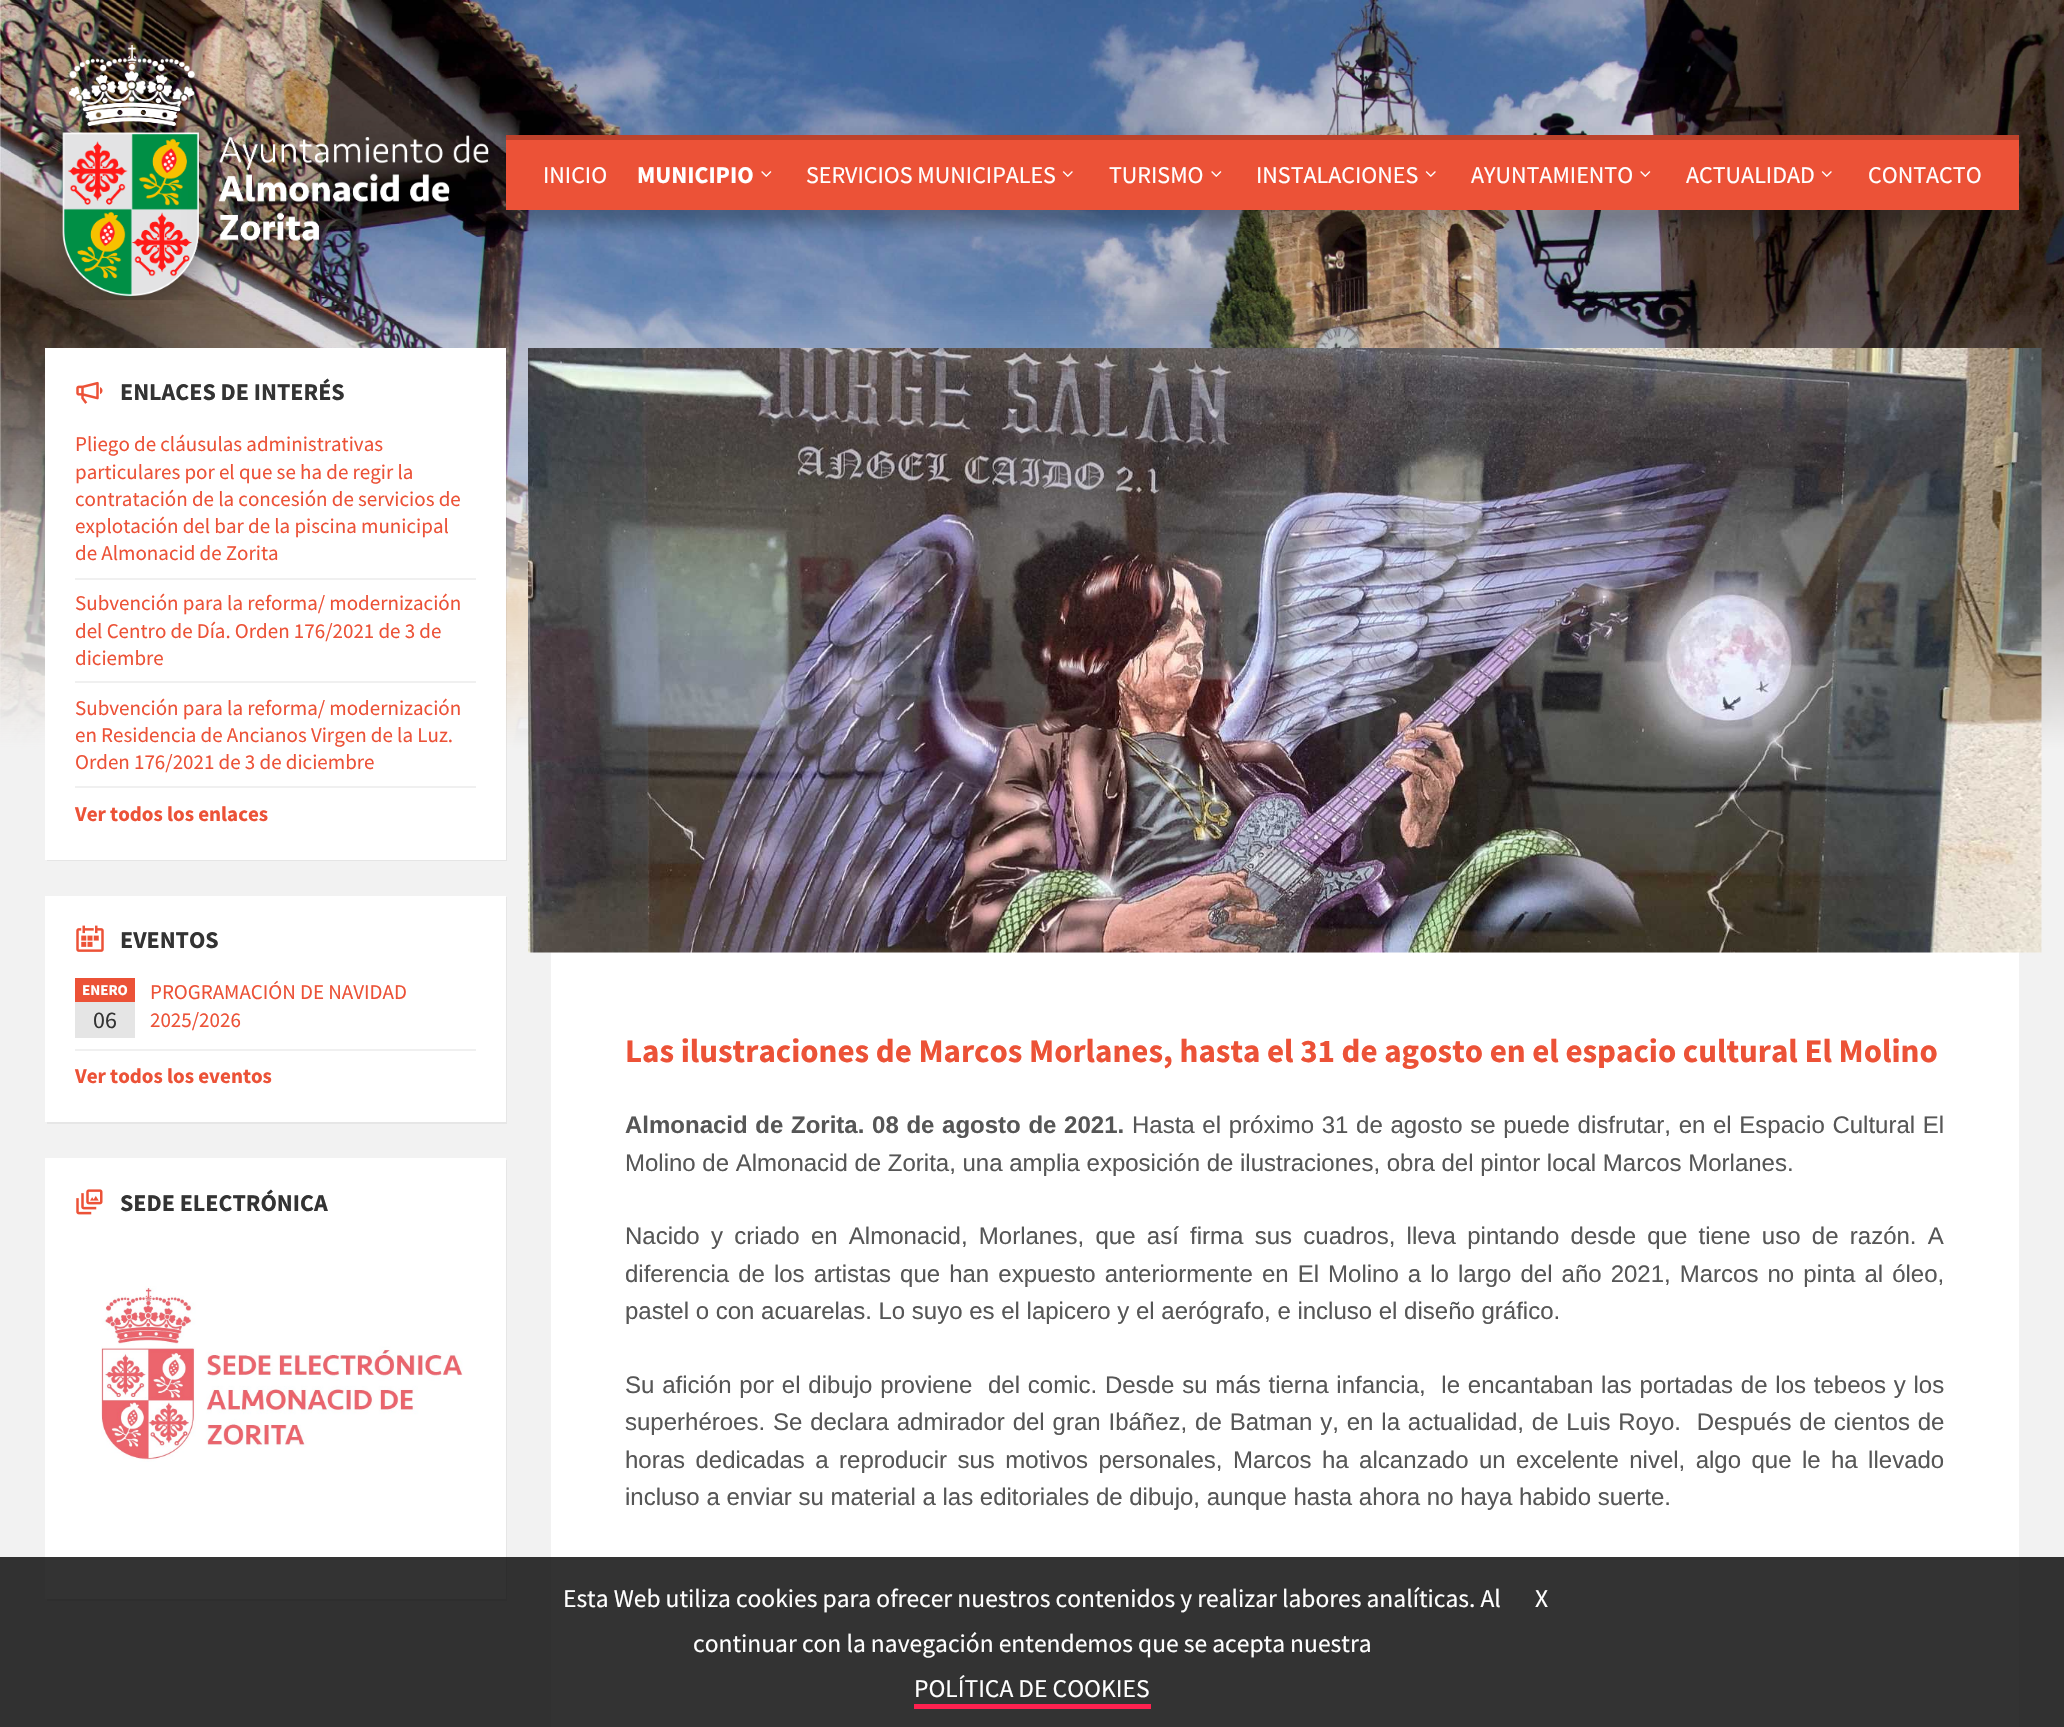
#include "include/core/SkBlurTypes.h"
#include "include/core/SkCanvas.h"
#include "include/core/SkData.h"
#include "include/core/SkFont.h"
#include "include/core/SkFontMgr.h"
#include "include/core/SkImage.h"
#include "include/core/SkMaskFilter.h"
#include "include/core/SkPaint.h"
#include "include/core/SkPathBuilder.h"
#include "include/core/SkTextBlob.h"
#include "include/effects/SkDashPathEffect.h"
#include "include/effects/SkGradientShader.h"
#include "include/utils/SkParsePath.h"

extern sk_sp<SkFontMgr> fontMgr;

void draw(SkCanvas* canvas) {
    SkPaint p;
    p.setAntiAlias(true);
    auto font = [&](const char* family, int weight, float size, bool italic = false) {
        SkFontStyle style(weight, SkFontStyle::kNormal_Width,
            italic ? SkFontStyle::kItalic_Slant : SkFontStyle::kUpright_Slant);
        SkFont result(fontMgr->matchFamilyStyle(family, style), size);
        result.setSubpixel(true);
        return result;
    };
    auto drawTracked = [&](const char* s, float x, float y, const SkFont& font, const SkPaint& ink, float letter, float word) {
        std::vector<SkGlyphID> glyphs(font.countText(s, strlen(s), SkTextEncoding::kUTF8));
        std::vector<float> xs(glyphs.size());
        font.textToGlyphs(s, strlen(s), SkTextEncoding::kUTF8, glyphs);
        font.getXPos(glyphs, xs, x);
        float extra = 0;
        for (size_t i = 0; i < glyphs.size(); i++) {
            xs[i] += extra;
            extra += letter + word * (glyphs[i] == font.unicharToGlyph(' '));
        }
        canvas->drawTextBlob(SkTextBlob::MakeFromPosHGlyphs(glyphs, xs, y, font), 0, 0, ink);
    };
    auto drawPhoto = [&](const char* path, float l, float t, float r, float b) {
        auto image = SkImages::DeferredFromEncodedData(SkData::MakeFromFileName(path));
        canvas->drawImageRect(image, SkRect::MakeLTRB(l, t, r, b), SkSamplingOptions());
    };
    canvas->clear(0xFFF2F2F2);
    drawPhoto("media/1.png", 0, 0, 2064, 750);
    p.setColor(0x40000000);
    p.setMaskFilter(SkMaskFilter::MakeBlur(kNormal_SkBlurStyle, 7.5f));
    canvas->drawRect(SkRect::MakeLTRB(491, 150, 2004, 225), p);
    p.setMaskFilter(nullptr);
    drawPhoto("media/2.png", 45, 45, 495, 300);
    p.setColor(0xFFEC5237);
    canvas->drawRect(SkRect::MakeLTRB(506, 140, 2019, 210), p);
    p.setColor(0xFFBD422C);
    canvas->drawRect(SkRect::MakeLTRB(506, 135, 2019, 140), p);
    auto font1 = font("Source Sans Pro", 400, 24);
    p.setColor(0xFFFFFFFF);
    canvas->drawString("INICIO", 543, 183, font1, p);
    auto font2 = font("Source Sans Pro", 700, 24);
    canvas->drawString("MUNICIPIO", 637, 183, font2, p);
    drawPhoto("media/3.png", 761, 171, 772, 177);
    canvas->drawString("SERVICIOS MUNICIPALES", 806, 183, font1, p);
    drawPhoto("media/4.png", 1062, 171, 1073, 177);
    canvas->drawString("TURISMO", 1109, 183, font1, p);
    drawPhoto("media/3.png", 1211, 171, 1222, 177);
    canvas->drawString("INSTALACIONES", 1256, 183, font1, p);
    drawPhoto("media/4.png", 1425, 171, 1436, 177);
    canvas->drawString("AYUNTAMIENTO", 1471, 183, font1, p);
    drawPhoto("media/3.png", 1640, 171, 1651, 177);
    canvas->drawString("ACTUALIDAD", 1686, 183, font1, p);
    drawPhoto("media/4.png", 1821, 171, 1832, 177);
    canvas->drawString("CONTACTO", 1868, 183, font1, p);
    p.setColor(0x0D000000);
    canvas->drawPath(SkPathBuilder().moveTo(47, 860).lineTo(47, 861).lineTo(507, 861).lineTo(507, 350).lineTo(506, 350).lineTo(506, 860).close().detach(), p);
    p.setColor(0xFFFFFFFF);
    canvas->drawRect(SkRect::MakeLTRB(45, 348, 506, 860), p);
    drawPhoto("media/5.png", 76, 381, 103, 404);
    p.setColor(0xFF333333);
    canvas->drawString("ENLACES DE INTERÉS", 120, 400, font2, p);
    auto font3 = font("Source Sans Pro", 400, 21);
    p.setColor(0xFFEC5237);
    {
        const struct { const char* s; float x, y; } items[] = {
            {"Pliego de cláusulas administrativas", 75, 451},
            {"particulares por el que se ha de regir la", 75, 479},
            {"contratación de la concesión de servicios de", 75, 506},
            {"explotación del bar de la piscina municipal", 75, 533},
            {"de Almonacid de Zorita", 75, 560},
        };
        for (auto [s, x, y] : items) {
            canvas->drawString(s, x, y, font3, p);
        }
    }
    p.setColor(0xFFF0F0F0);
    canvas->drawRect(SkRect::MakeLTRB(75, 578, 476, 580), p);
    p.setColor(0xFFEC5237);
    {
        const struct { const char* s; float x, y; } items[] = {
            {"Subvención para la reforma/ modernización", 75, 610},
            {"del Centro de Día. Orden 176/2021 de 3 de", 75, 638},
            {"diciembre", 75, 665},
        };
        for (auto [s, x, y] : items) {
            canvas->drawString(s, x, y, font3, p);
        }
    }
    p.setColor(0xFFF0F0F0);
    canvas->drawRect(SkRect::MakeLTRB(75, 681, 476, 683), p);
    p.setColor(0xFFEC5237);
    {
        const struct { const char* s; float x, y; } items[] = {
            {"Subvención para la reforma/ modernización", 75, 715},
            {"en Residencia de Ancianos Virgen de la Luz.", 75, 742},
            {"Orden 176/2021 de 3 de diciembre", 75, 769},
        };
        for (auto [s, x, y] : items) {
            canvas->drawString(s, x, y, font3, p);
        }
    }
    p.setColor(0xFFF0F0F0);
    canvas->drawRect(SkRect::MakeLTRB(75, 786, 476, 788), p);
    auto font4 = font("Source Sans Pro", 700, 21);
    p.setColor(0xFFEC5237);
    canvas->drawString("Ver todos los enlaces", 75, 821, font4, p);
    p.setColor(0xFFE6E6E6);
    canvas->drawPath(SkPathBuilder().moveTo(47, 1122).lineTo(47, 1124).lineTo(507, 1124).lineTo(507, 897).lineTo(506, 897).lineTo(506, 1122).close().detach(), p);
    p.setColor(0xFFFFFFFF);
    canvas->drawRect(SkRect::MakeLTRB(45, 896, 506, 1122), p);
    drawPhoto("media/6.png", 76, 925, 104, 952);
    p.setColor(0xFF333333);
    canvas->drawString("EVENTOS", 120, 948, font2, p);
    p.setColor(0xFFEC5237);
    canvas->drawRect(SkRect::MakeLTRB(75, 978, 135, 1002), p);
    auto font5 = font("Source Sans Pro", 700, 15);
    p.setColor(0xFFFFFFFF);
    canvas->drawString("ENERO", 82, 995, font5, p);
    p.setColor(0xFFE5E5E5);
    canvas->drawRect(SkRect::MakeLTRB(75, 1002, 135, 1038), p);
    p.setColor(0xFF333333);
    canvas->drawString("06", 93, 1028, font1, p);
    p.setColor(0xFFEC5237);
    canvas->drawString("PROGRAMACIÓN DE NAVIDAD", 150, 999, font3, p);
    canvas->drawString("2025/2026", 150, 1027, font3, p);
    p.setColor(0xFFF0F0F0);
    canvas->drawRect(SkRect::MakeLTRB(75, 1049, 476, 1051), p);
    p.setColor(0xFFEC5237);
    canvas->drawString("Ver todos los eventos", 75, 1083, font4, p);
    p.setColor(0xFFE6E6E6);
    canvas->drawPath(SkPathBuilder().moveTo(47, 1599).lineTo(47, 1601).lineTo(507, 1601).lineTo(507, 1160).lineTo(506, 1160).lineTo(506, 1599).close().detach(), p);
    p.setColor(0xFFFFFFFF);
    canvas->drawRect(SkRect::MakeLTRB(45, 1158, 506, 1599), p);
    drawPhoto("media/7.png", 76, 1189, 103, 1215);
    p.setColor(0xFF333333);
    canvas->drawString("SEDE ELECTRÓNICA", 120, 1211, font2, p);
    drawPhoto("media/8.png", 101, 1286, 463, 1462);
    p.setColor(0xFFFFFFFF);
    canvas->drawRect(SkRect::MakeLTRB(551, 952, 2019, 1727), p);
    drawPhoto("media/9.png", 528, 348, 2042, 953);
    auto font6 = font("Source Sans Pro", 700, 33);
    p.setColor(0xFFEC5237);
    canvas->drawString("Las ilustraciones de Marcos Morlanes, hasta el 31 de agosto en el espacio cultural El Molino", 625, 1062, font6, p);
    auto font7 = font("Liberation Sans", 700, 24);
    p.setColor(0xFF565656);
    drawTracked("Almonacid de Zorita. 08 de agosto de 2021.", 625, 1133, font7, p, 0, 1);
    auto font8 = font("Liberation Sans", 400, 24);
    drawTracked("Hasta el próximo 31 de agosto se puede disfrutar, en el Espacio Cultural El", 1132, 1133, font8, p, 0, 1);
    canvas->drawString("Molino de Almonacid de Zorita, una amplia exposición de ilustraciones, obra del pintor local Marcos Morlanes.", 625, 1171, font8, p);
    drawTracked("Nacido y criado en Almonacid, Morlanes, que así firma sus cuadros, lleva pintando desde que tiene uso de razón. A", 625, 1244, font8, p, 0, 4.6f);
    drawTracked("diferencia de los artistas que han expuesto anteriormente en El Molino a lo largo del año 2021, Marcos no pinta al óleo,", 625, 1282, font8, p, 0, 2.4f);
    canvas->drawString("pastel o con acuarelas. Lo suyo es el lapicero y el aerógrafo, e incluso el diseño gráfico.", 625, 1319, font8, p);
    drawTracked("Su afición por el dibujo proviene  del comic. Desde su más tierna infancia,  le encantaban las portadas de los tebeos y los", 625, 1393, font8, p, 0, 1.15f);
    drawTracked("superhéroes. Se declara admirador del gran Ibáñez, de Batman y, en la actualidad, de Luis Royo.  Después de cientos de", 625, 1430, font8, p, 0, 1.2f);
    drawTracked("horas dedicadas a reproducir sus motivos personales, Marcos ha alcanzado un excelente nivel, algo que le ha llevado", 625, 1468, font8, p, 0, 3.75f);
    canvas->drawString("incluso a enviar su material a las editoriales de dibujo, aunque hasta ahora no haya habido suerte.", 625, 1505, font8, p);
    p.setColor(0xCC000000);
    canvas->drawRect(SkRect::MakeLTRB(0, 1557, 2064, 1727), p);
    auto font9 = font("Source Sans Pro", 400, 25.5f);
    p.setColor(0xFFFFFFFF);
    {
        const struct { const char* s; float x, y; } items[] = {
            {"Esta Web utiliza cookies para ofrecer nuestros contenidos y realizar labores analíticas. Al", 563, 1607},
            {"X", 1535, 1607},
            {"continuar con la navegación entendemos que se acepta nuestra", 693, 1652},
            {"POLÍTICA DE COOKIES", 914, 1697},
        };
        for (auto [s, x, y] : items) {
            canvas->drawString(s, x, y, font9, p);
        }
    }
    p.setColor(0xFFFF214F);
    canvas->drawRect(SkRect::MakeLTRB(914, 1704, 1151, 1709), p);
}
